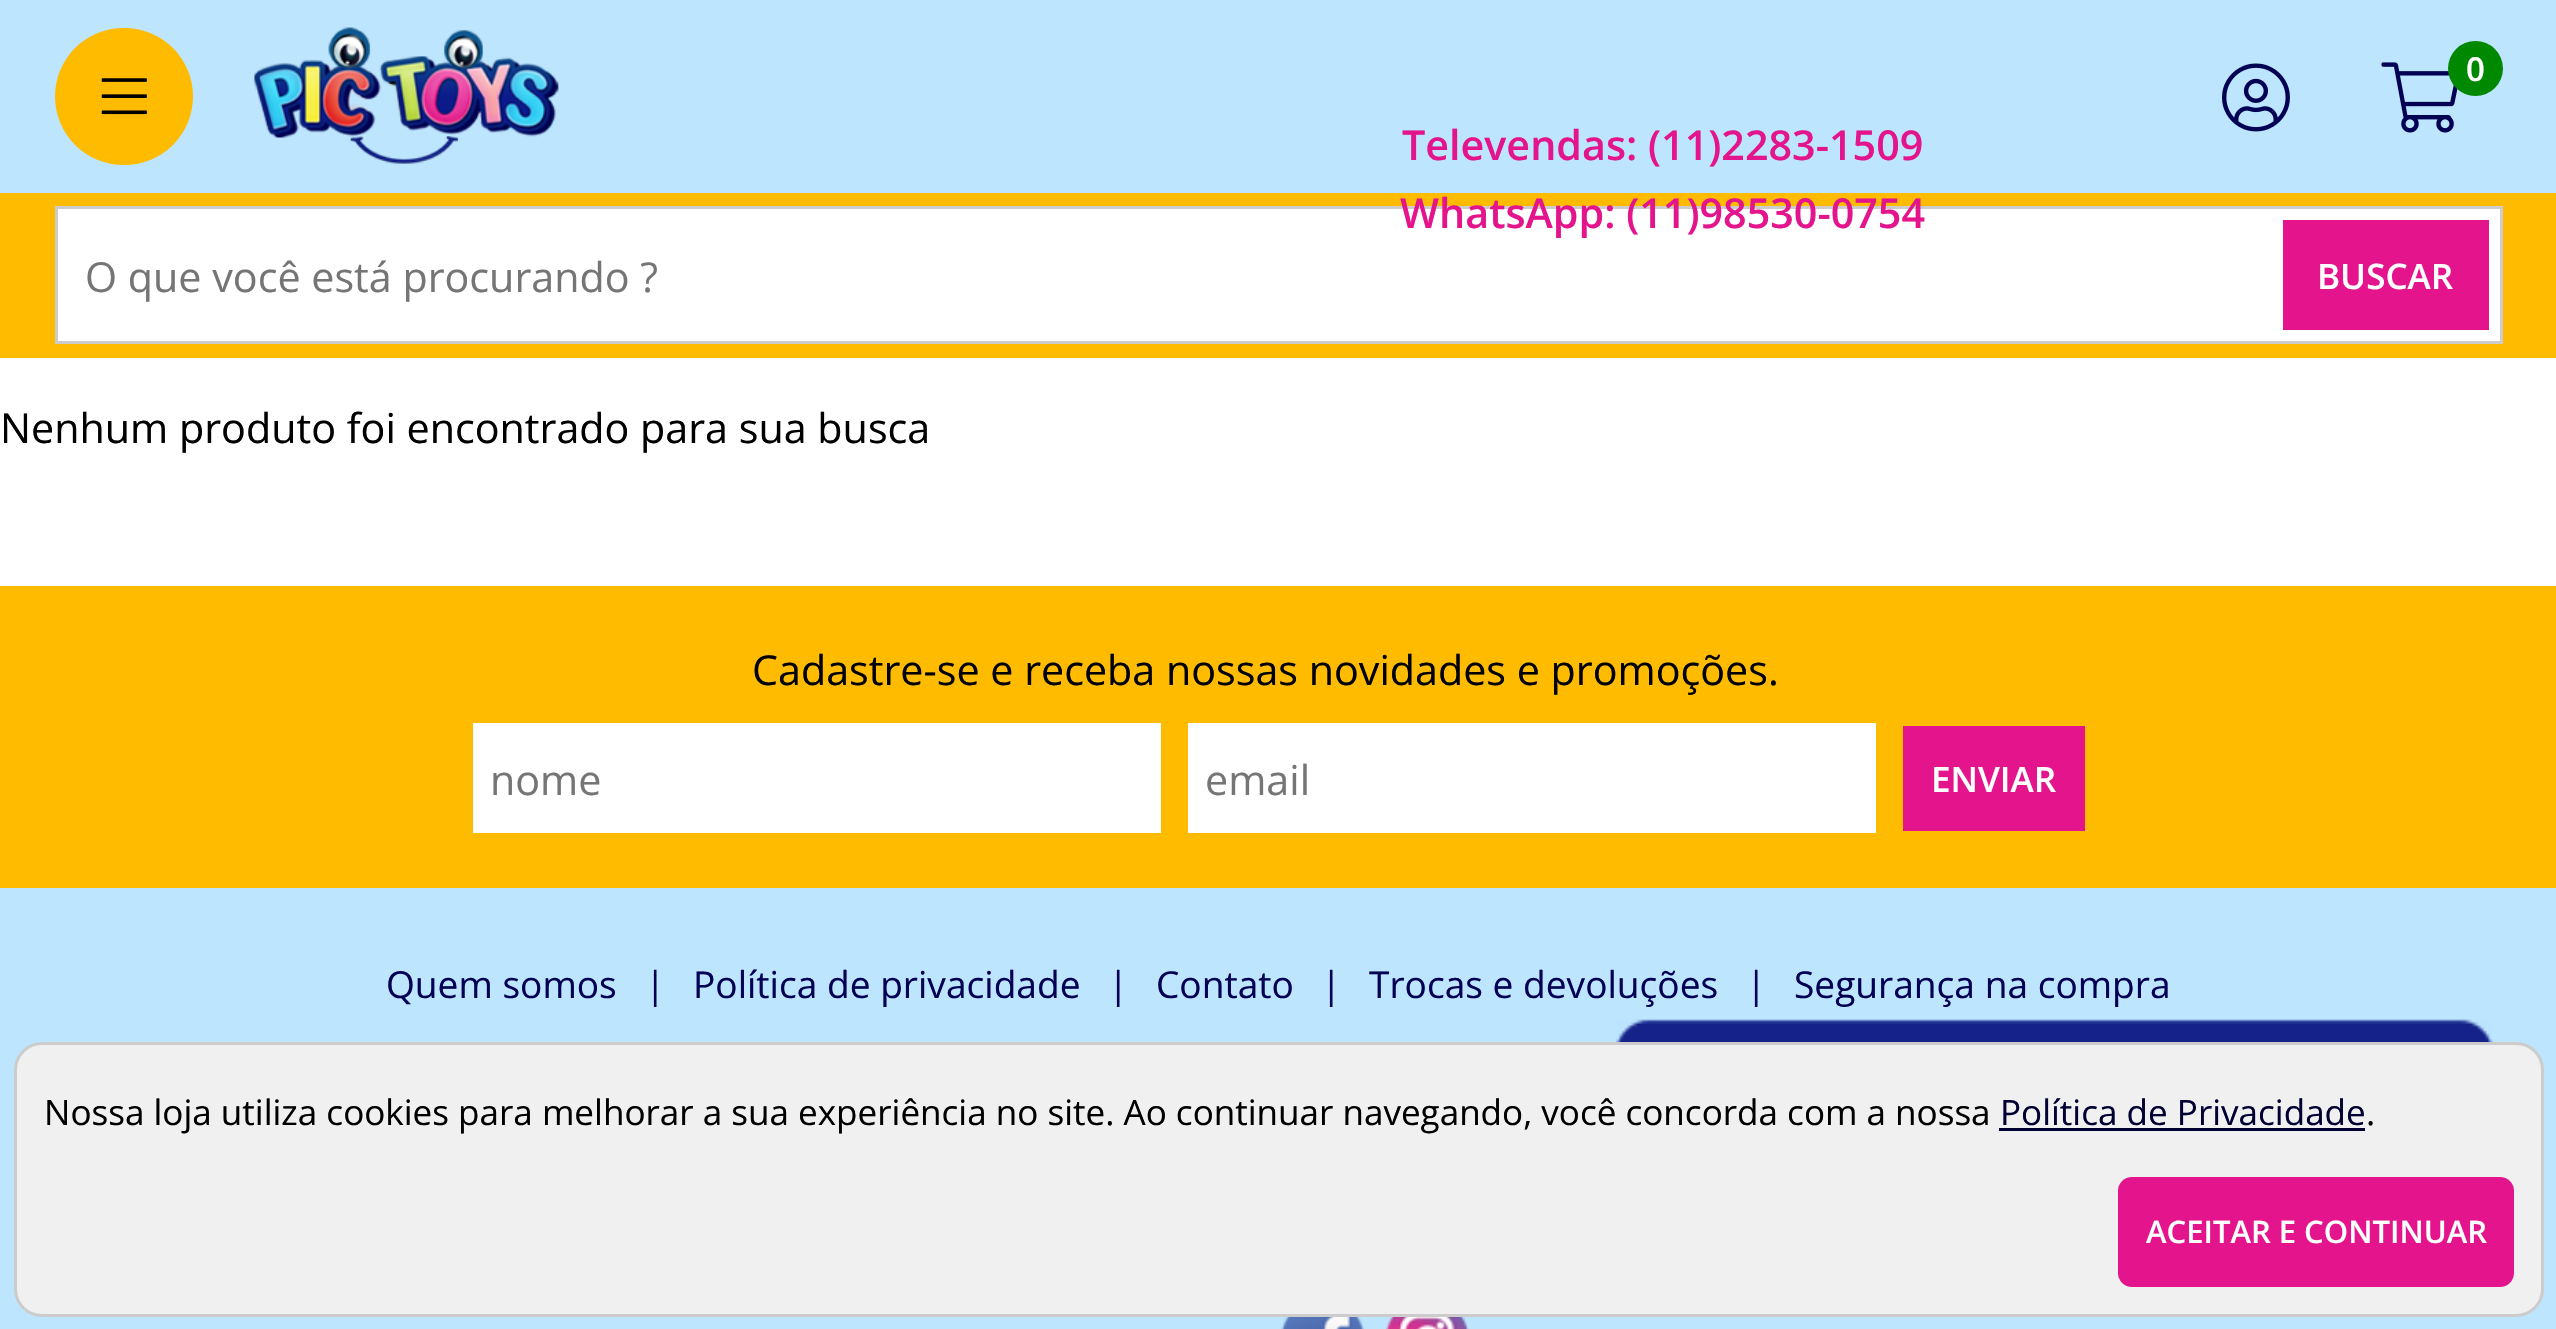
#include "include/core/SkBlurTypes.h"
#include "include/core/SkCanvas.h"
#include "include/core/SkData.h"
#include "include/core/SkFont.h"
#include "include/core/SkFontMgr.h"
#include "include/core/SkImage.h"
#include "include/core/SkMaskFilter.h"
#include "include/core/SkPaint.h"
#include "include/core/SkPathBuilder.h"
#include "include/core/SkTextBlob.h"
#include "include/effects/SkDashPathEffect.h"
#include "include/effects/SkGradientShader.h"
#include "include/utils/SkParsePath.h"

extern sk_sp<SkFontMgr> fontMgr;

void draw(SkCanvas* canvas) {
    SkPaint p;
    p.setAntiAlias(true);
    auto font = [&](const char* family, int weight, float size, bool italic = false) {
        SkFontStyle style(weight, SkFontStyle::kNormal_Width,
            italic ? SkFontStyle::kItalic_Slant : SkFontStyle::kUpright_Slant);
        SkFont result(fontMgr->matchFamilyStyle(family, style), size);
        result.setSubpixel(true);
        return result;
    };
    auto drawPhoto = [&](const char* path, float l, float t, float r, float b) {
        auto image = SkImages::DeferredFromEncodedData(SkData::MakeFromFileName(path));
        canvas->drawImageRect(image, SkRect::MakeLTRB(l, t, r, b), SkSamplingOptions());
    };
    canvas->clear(0xFFFFFFFF);
    p.setColor(0xFFBDE5FE);
    canvas->drawRect(SkRect::MakeLTRB(0, 0, 2556, 193), p);
    drawPhoto("media/1.png", 254, 27, 559, 164);
    p.setColor(0xFFFFBB00);
    canvas->drawRoundRect(SkRect::MakeLTRB(55, 28, 193, 165), 68.5f, 68.5f, p);
    drawPhoto("media/2.png", 101, 78, 147, 115);
    drawPhoto("media/3.png", 2222, 63, 2290, 132);
    drawPhoto("media/4.png", 2381, 62, 2458, 133);
    p.setColor(0xFF008800);
    canvas->drawCircle(2475.5f, 68.5f, 27.5f, p);
    auto font1 = font("Open Sans", 600, 33);
    p.setColor(0xFFFFFFFF);
    canvas->drawString("0", 2466, 81, font1, p);
    auto font2 = font("Open Sans", 600, 41.25f);
    p.setColor(0xFFE4148C);
    canvas->drawString("Televendas: (11)2283-1509", 1402, 160, font2, p);
    p.setColor(0xFFFFBB00);
    canvas->drawRect(SkRect::MakeLTRB(0, 193, 2556, 358), p);
    p.setColor(0xFFFFFFFF);
    canvas->drawRect(SkRect::MakeLTRB(56.5f, 207.5f, 2501.5f, 342.5f), p);
    p.setStyle(SkPaint::kStroke_Style);
    p.setStrokeWidth(3);
    p.setColor(0xFFCCCCCC);
    canvas->drawRect(SkRect::MakeLTRB(56.5f, 207.5f, 2501.5f, 342.5f), p);
    p.setStyle(SkPaint::kFill_Style);
    p.setColor(0xFFE4148C);
    canvas->drawString("WhatsApp: (11)98530-0754", 1400, 228, font2, p);
    auto font3 = font("Open Sans", 400, 41.25f);
    p.setColor(0xFF757575);
    canvas->drawString("O que você está procurando ?", 85, 292, font3, p);
    p.setColor(0xFFE4148C);
    canvas->drawRect(SkRect::MakeLTRB(2283, 220, 2489, 330), p);
    auto font4 = font("Open Sans", 600, 35.05f);
    p.setColor(0xFFFFFFFF);
    canvas->drawString("BUSCAR", 2317, 289, font4, p);
    p.setColor(0xFF000000);
    canvas->drawString("Nenhum produto foi encontrado para sua busca", 0, 443, font3, p);
    p.setColor(0xFFBDE5FE);
    canvas->drawRect(SkRect::MakeLTRB(0, 888, 2556, 1329), p);
    drawPhoto("media/5.png", 1616, 1019, 2493, 1042);
    p.setColor(0xFFFFBB00);
    canvas->drawRect(SkRect::MakeLTRB(0, 586, 2556, 888), p);
    p.setColor(0xFF000000);
    canvas->drawString("Cadastre-se e receba nossas novidades e promoções.", 752, 685, font3, p);
    p.setColor(0xFFFFFFFF);
    canvas->drawRect(SkRect::MakeLTRB(473, 723, 1161, 833), p);
    p.setColor(0xFF757575);
    canvas->drawString("nome", 490, 795, font3, p);
    p.setColor(0xFFFFFFFF);
    canvas->drawRect(SkRect::MakeLTRB(1188, 723, 1876, 833), p);
    p.setColor(0xFF757575);
    canvas->drawString("email", 1205, 795, font3, p);
    p.setColor(0xFFE4148C);
    canvas->drawRect(SkRect::MakeLTRB(1903, 726, 2085, 831), p);
    p.setColor(0xFFFFFFFF);
    canvas->drawString("ENVIAR", 1931, 792, font4, p);
    auto font5 = font("Open Sans", 400, 37.1f);
    p.setColor(0xFF020153);
    {
        const struct { const char* s; float x, y; } items[] = {
            {"Quem somos", 386, 998},
            {"|", 645, 998},
            {"Política de privacidade", 693, 998},
            {"|", 1108, 998},
            {"Contato", 1156, 998},
            {"|", 1321, 998},
            {"Trocas e devoluções", 1369, 998},
            {"|", 1746, 998},
            {"Segurança na compra", 1794, 998},
        };
        for (auto [s, x, y] : items) {
            canvas->drawString(s, x, y, font5, p);
        }
    }
    drawPhoto("media/6.png", 1281, 1317, 1364, 1329);
    drawPhoto("media/7.png", 1386, 1317, 1469, 1329);
    p.setColor(0xFFF0F0F0);
    canvas->drawRoundRect(SkRect::MakeLTRB(15.5f, 1043.5f, 2542.5f, 1315.5f), 26.5f, 26.5f, p);
    p.setStyle(SkPaint::kStroke_Style);
    p.setColor(0xFFCCCCCC);
    canvas->drawRoundRect(SkRect::MakeLTRB(15.5f, 1043.5f, 2542.5f, 1315.5f), 26.5f, 26.5f, p);
    auto font6 = font("Open Sans", 400, 35.05f);
    p.setStyle(SkPaint::kFill_Style);
    p.setColor(0xFF000000);
    canvas->drawString("Nossa loja utiliza cookies para melhorar a sua experiência no site. Ao continuar navegando, você concorda com a nossa", 44, 1125, font6, p);
    p.setColor(0xFF000033);
    canvas->drawString("Política de Privacidade", 2000, 1125, font6, p);
    canvas->drawRect(SkRect::MakeLTRB(1999, 1128, 2365, 1131), p);
    p.setColor(0xFF000000);
    canvas->drawString(".", 2366, 1125, font6, p);
    p.setColor(0xFFE4148C);
    canvas->drawRoundRect(SkRect::MakeLTRB(2118, 1177, 2514, 1287), 14, 14, p);
    auto font7 = font("Open Sans", 600, 31);
    p.setColor(0xFFFFFFFF);
    canvas->drawString("ACEITAR E CONTINUAR", 2146, 1243, font7, p);
}
